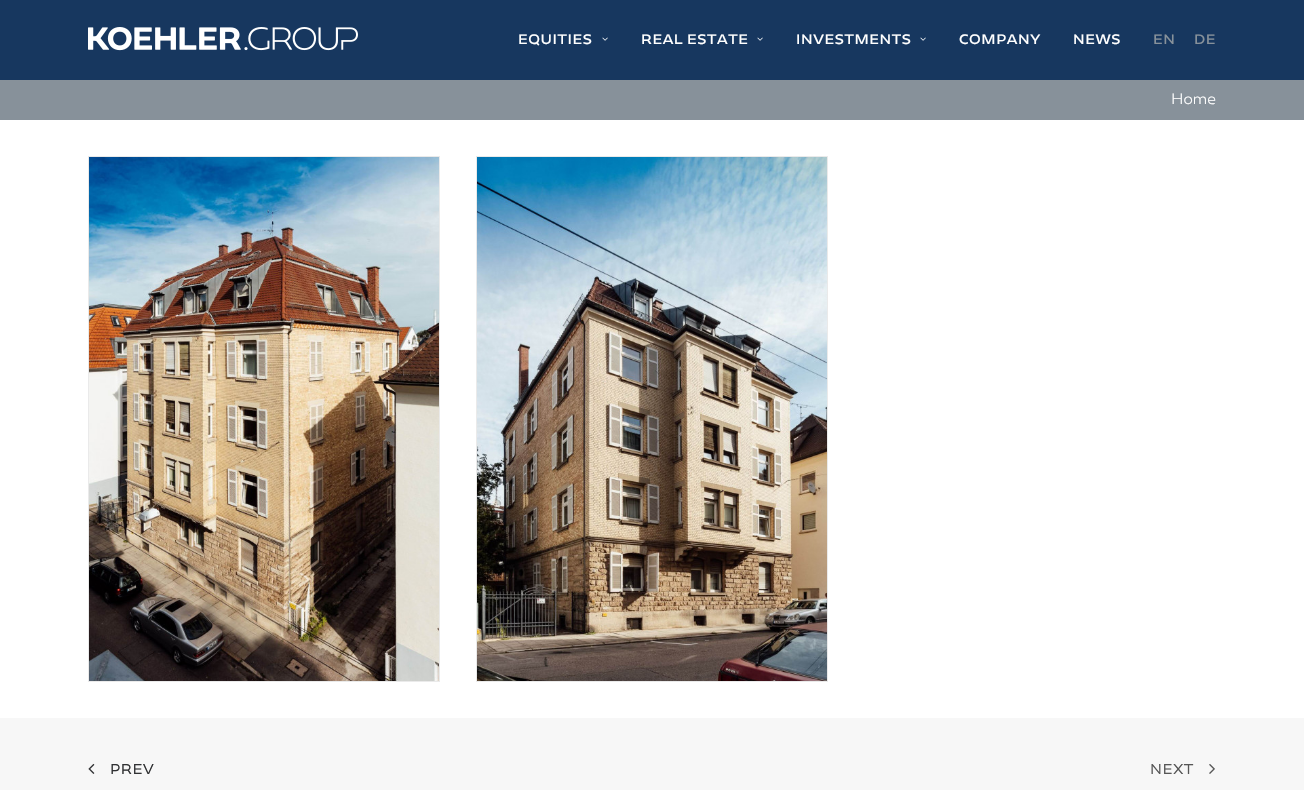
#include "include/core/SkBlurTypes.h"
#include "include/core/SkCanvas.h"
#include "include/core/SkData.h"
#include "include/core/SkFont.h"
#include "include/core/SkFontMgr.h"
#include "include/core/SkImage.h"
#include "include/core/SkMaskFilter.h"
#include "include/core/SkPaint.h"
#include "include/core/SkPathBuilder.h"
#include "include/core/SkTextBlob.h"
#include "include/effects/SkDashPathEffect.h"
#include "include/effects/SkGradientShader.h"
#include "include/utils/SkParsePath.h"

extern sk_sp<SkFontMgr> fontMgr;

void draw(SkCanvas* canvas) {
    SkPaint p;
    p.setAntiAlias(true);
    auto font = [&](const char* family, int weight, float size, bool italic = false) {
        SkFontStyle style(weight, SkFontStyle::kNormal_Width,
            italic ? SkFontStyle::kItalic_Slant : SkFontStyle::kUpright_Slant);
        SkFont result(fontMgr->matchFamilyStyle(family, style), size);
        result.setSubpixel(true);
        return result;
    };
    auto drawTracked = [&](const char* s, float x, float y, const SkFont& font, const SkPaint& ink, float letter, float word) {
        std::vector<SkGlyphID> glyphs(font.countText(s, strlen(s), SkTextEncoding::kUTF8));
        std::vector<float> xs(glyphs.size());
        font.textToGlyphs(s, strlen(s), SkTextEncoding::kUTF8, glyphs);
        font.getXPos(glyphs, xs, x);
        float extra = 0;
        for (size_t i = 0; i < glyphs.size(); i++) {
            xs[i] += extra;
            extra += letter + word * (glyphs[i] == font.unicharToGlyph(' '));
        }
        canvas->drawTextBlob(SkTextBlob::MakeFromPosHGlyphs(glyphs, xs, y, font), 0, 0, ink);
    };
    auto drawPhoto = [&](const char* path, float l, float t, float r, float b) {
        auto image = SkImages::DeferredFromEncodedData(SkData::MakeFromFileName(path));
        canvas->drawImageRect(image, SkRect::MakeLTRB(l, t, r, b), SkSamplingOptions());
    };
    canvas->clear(0xFFF7F7F7);
    p.setColor(0xFF17375F);
    canvas->drawRect(SkRect::MakeLTRB(0, 0, 1304, 80), p);
    drawPhoto("media/1.png", 88, 27, 358, 51);
    auto font1 = font("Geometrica", 400, 12);
    p.setColor(0xFFFFFFFF);
    drawTracked("EQUITIES", 518, 44, font1, p, 0.6f, 0);
    drawPhoto("media/2.png", 602, 37, 608, 41);
    drawTracked("REAL ESTATE", 641, 44, font1, p, 0.6f, 0);
    drawPhoto("media/2.png", 757, 37, 763, 41);
    drawTracked("INVESTMENTS", 796, 44, font1, p, 0.6f, 0);
    drawPhoto("media/2.png", 920, 37, 926, 41);
    drawTracked("COMPANY", 959, 44, font1, p, 0.6f, 0);
    drawTracked("NEWS", 1073, 44, font1, p, 0.6f, 0);
    p.setColor(0xFF87919A);
    drawTracked("EN", 1153, 44, font1, p, 0.6f, 0);
    drawTracked("DE", 1194, 44, font1, p, 0.6f, 0);
    canvas->drawRect(SkRect::MakeLTRB(0, 80, 1304, 120), p);
    auto font2 = font("Geometrica", 300, 13);
    p.setColor(0xFFFFFFFF);
    canvas->drawString("Home", 1171, 104, font2, p);
    canvas->drawRect(SkRect::MakeLTRB(0, 120, 1304, 718), p);
    p.setStyle(SkPaint::kStroke_Style);
    p.setStrokeWidth(1);
    p.setColor(0xFFEAEAEA);
    canvas->drawRect(SkRect::MakeLTRB(88.5f, 156.5f, 439.5f, 681.5f), p);
    drawPhoto("media/3.png", 89, 157, 439, 681);
    canvas->drawRect(SkRect::MakeLTRB(476.5f, 156.5f, 827.5f, 681.5f), p);
    drawPhoto("media/4.png", 477, 157, 827, 681);
    drawPhoto("media/5.png", 88, 763, 95, 774);
    auto font3 = font("Geometrica", 700, 12);
    p.setStyle(SkPaint::kFill_Style);
    p.setColor(0xFF303133);
    drawTracked("PREV", 110, 774, font3, p, 1, 0);
    p.setColor(0xFF565656);
    drawTracked("NEXT", 1150, 774, font3, p, 1, 0);
    drawPhoto("media/6.png", 1209, 764, 1215, 774);
}
